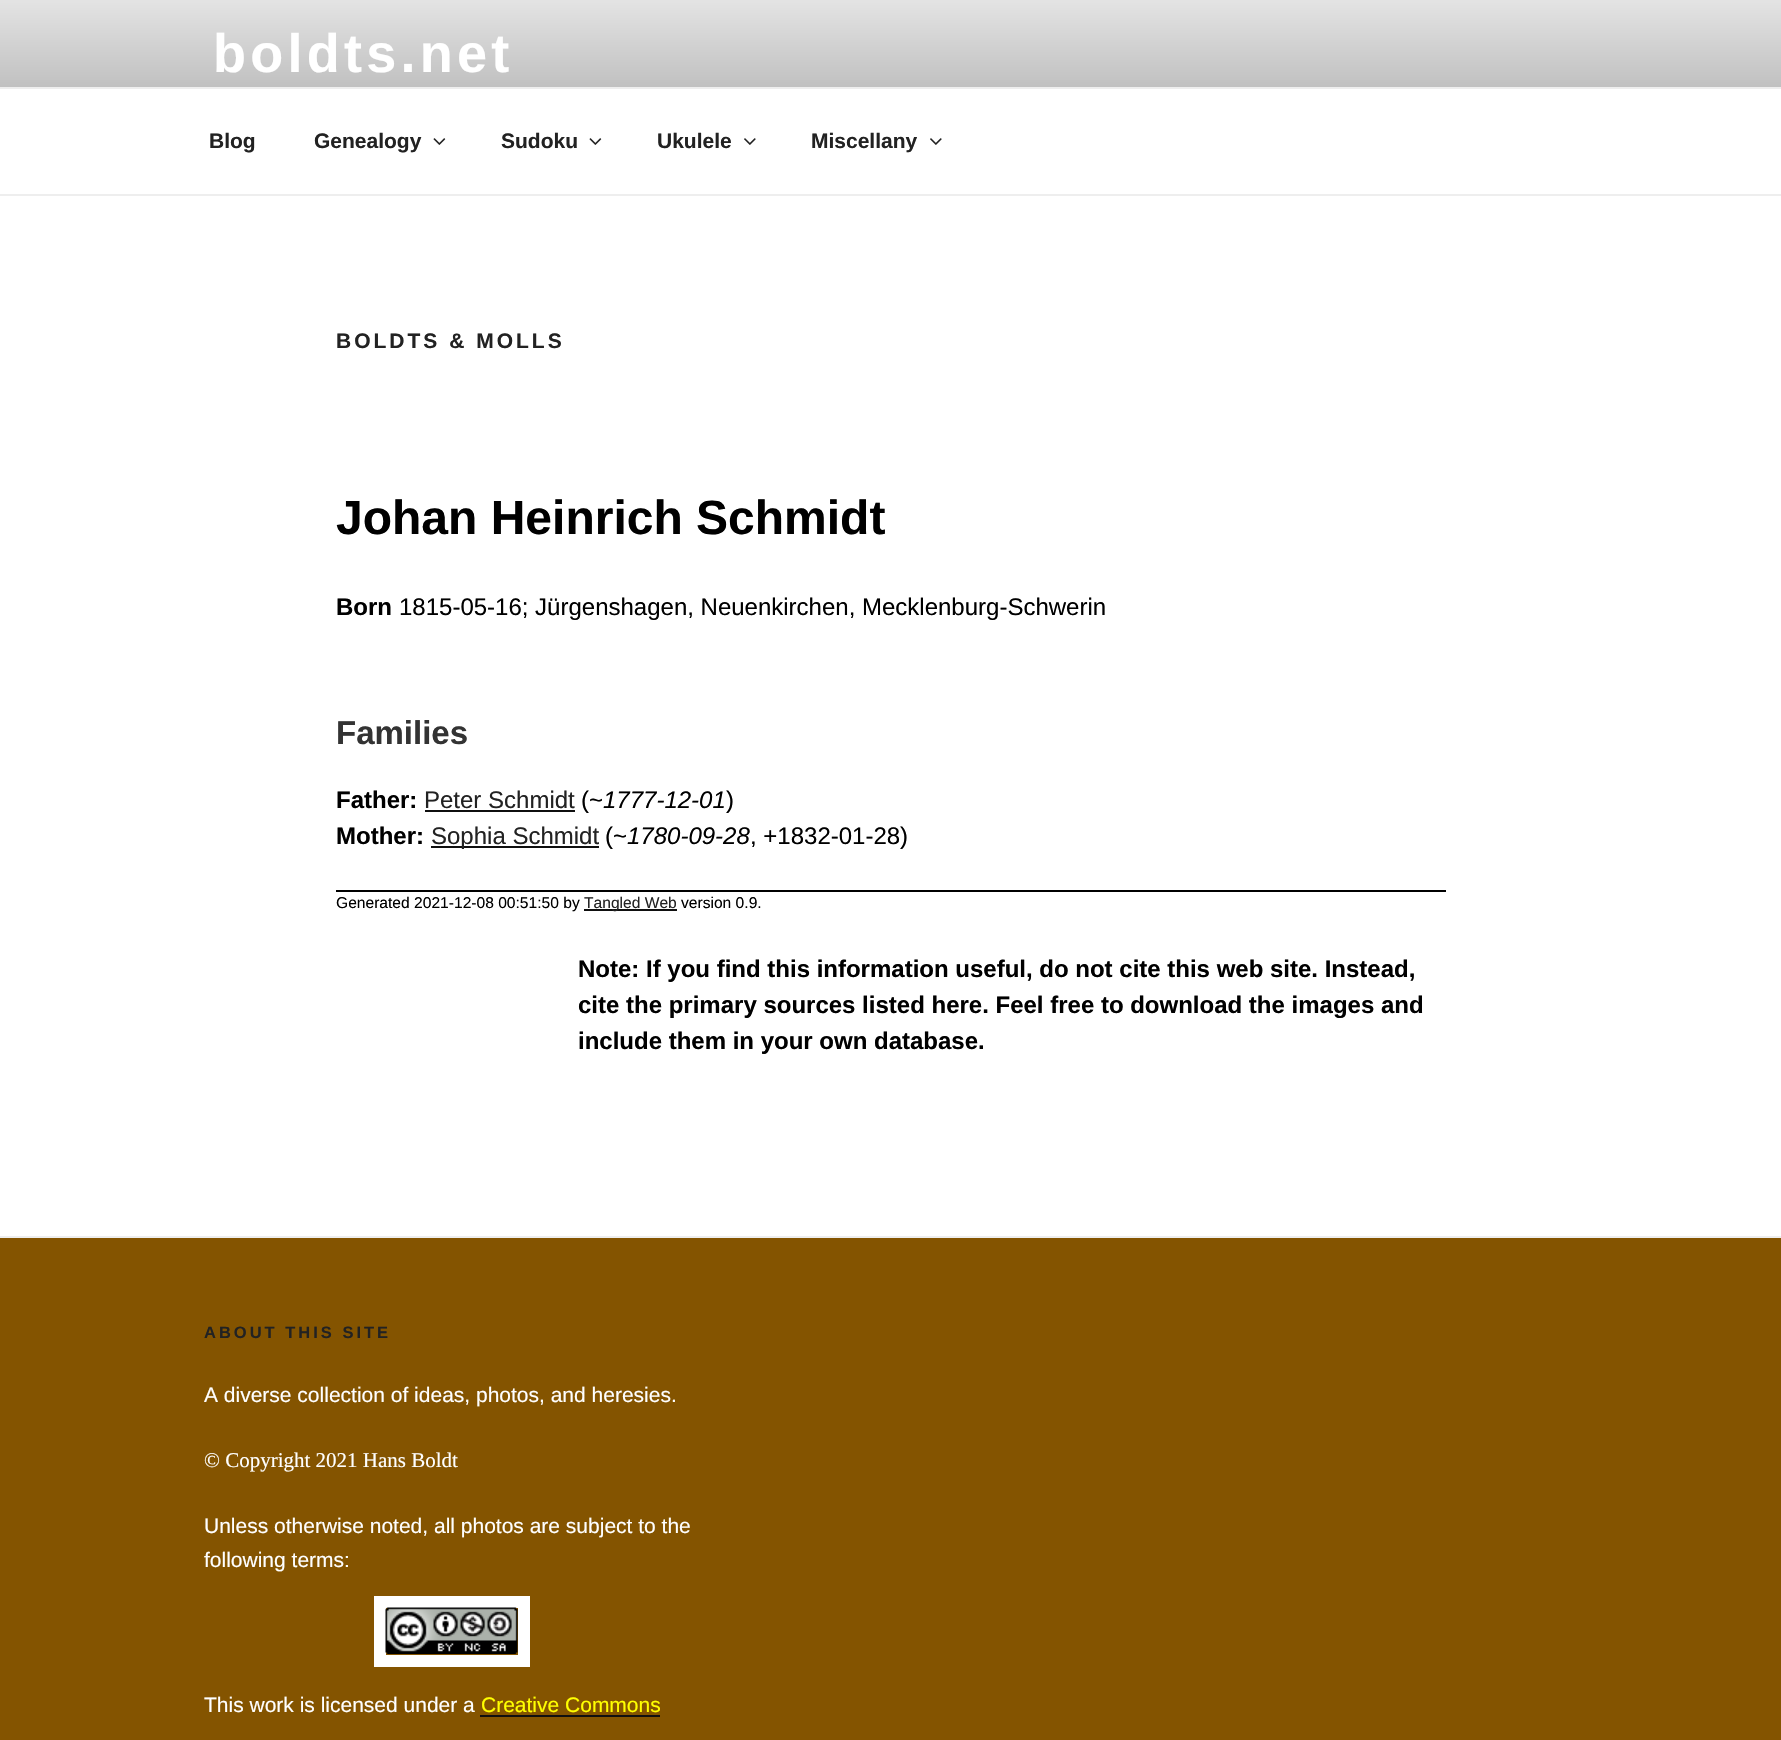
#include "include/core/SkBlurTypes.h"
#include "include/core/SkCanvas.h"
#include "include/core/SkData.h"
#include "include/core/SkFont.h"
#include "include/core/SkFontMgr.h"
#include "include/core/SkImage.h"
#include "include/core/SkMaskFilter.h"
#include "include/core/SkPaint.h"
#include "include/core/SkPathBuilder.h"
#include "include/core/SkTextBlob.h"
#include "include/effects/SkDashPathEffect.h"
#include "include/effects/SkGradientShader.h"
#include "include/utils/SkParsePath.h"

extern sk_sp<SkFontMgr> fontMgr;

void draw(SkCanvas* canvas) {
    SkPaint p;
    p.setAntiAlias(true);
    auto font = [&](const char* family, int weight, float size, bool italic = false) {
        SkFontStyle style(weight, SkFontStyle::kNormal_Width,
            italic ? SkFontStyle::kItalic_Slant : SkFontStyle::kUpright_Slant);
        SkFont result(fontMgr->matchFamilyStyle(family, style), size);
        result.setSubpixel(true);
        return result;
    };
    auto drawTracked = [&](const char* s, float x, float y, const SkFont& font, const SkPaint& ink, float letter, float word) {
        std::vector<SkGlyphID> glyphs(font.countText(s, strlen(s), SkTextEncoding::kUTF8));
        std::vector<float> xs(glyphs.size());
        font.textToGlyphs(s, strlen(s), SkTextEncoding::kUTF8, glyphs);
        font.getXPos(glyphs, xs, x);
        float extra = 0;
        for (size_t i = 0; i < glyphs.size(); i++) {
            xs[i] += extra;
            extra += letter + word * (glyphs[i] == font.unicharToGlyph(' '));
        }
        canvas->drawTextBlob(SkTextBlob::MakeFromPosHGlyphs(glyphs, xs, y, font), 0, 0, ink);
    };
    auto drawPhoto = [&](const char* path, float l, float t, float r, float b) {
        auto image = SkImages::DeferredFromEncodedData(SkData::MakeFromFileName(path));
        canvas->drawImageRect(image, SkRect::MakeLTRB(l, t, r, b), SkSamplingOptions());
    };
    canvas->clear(0xFFFFFFFF);
    {
        const SkColor colors[] = {0xFFF9F9F9, 0xFFAEAEAE, 0xFFAEAEAE};
        const float stops[] = {0, 0.75f, 1};
        const SkPoint ends[] = {{891, -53}, {891, 195}};
        p.setShader(SkGradientShader::MakeLinear(ends, colors, stops, 3, SkTileMode::kClamp));
        p.setAlpha(255);
    }
    canvas->drawRect(SkRect::MakeLTRB(0, 0, 1781, 87), p);
    auto font1 = font("Liberation Sans", 700, 54);
    p.setShader(nullptr);
    p.setColor(0xFFFFFFFF);
    drawTracked("boldts.net", 213, 72, font1, p, 4.25f, 0);
    p.setColor(0xFFEEEEEE);
    canvas->drawRect(SkRect::MakeLTRB(0, 87, 1781, 89), p);
    canvas->drawRect(SkRect::MakeLTRB(0, 194, 1781, 196), p);
    auto font2 = font("Liberation Sans", 700, 21);
    p.setColor(0xFF222222);
    canvas->drawString("Blog", 209, 148, font2, p);
    canvas->drawString("Genealogy", 314, 148, font2, p);
    drawPhoto("media/1.png", 433, 138, 446, 145);
    canvas->drawString("Sudoku", 501, 148, font2, p);
    drawPhoto("media/1.png", 589, 138, 602, 145);
    canvas->drawString("Ukulele", 657, 148, font2, p);
    drawPhoto("media/2.png", 744, 138, 756, 145);
    canvas->drawString("Miscellany", 811, 148, font2, p);
    drawPhoto("media/2.png", 930, 138, 942, 145);
    drawTracked("BOLDTS & MOLLS", 336, 348, font2, p, 3, 0);
    auto font3 = font("Liberation Sans", 700, 48);
    p.setColor(0xFF000000);
    canvas->drawString("Johan Heinrich Schmidt", 336, 534, font3, p);
    auto font4 = font("Liberation Sans", 700, 24);
    canvas->drawString("Born", 336, 615, font4, p);
    auto font5 = font("Liberation Sans", 400, 24);
    canvas->drawString("1815-05-16; Jürgenshagen, Neuenkirchen, Mecklenburg-Schwerin", 399, 615, font5, p);
    auto font6 = font("Liberation Sans", 700, 33);
    p.setColor(0xFF333333);
    canvas->drawString("Families", 336, 744, font6, p);
    p.setColor(0xFF000000);
    canvas->drawString("Father:", 336, 808, font4, p);
    p.setColor(0xFF222222);
    canvas->drawString("Peter Schmidt", 424, 808, font5, p);
    p.setColor(0xFF0F0F0F);
    canvas->drawRect(SkRect::MakeLTRB(425, 810, 575, 812), p);
    p.setColor(0xFF000000);
    canvas->drawString("(~", 581, 808, font5, p);
    auto font7 = font("Liberation Sans", 400, 24, true);
    canvas->drawString("1777-12-01", 603, 808, font7, p);
    canvas->drawString(")", 726, 808, font5, p);
    canvas->drawString("Mother:", 336, 844, font4, p);
    p.setColor(0xFF0F0F0F);
    canvas->drawRect(SkRect::MakeLTRB(431, 846, 599, 848), p);
    p.setColor(0xFF222222);
    canvas->drawString("Sophia Schmidt", 431, 844, font5, p);
    p.setColor(0xFF000000);
    canvas->drawString("(~", 605, 844, font5, p);
    canvas->drawString("1780-09-28", 627, 844, font7, p);
    canvas->drawString(", +1832-01-28)", 750, 844, font5, p);
    canvas->drawRect(SkRect::MakeLTRB(336, 890, 1446, 892), p);
    auto font8 = font("Liberation Sans", 400, 15.6f);
    canvas->drawString("Generated 2021-12-08 00:51:50 by", 336, 908, font8, p);
    p.setColor(0xFF0F0F0F);
    canvas->drawRect(SkRect::MakeLTRB(584, 909, 677, 911), p);
    p.setColor(0xFF222222);
    canvas->drawString("Tangled Web", 584, 908, font8, p);
    p.setColor(0xFF000000);
    canvas->drawString("version 0.9.", 681, 908, font8, p);
    {
        const struct { const char* s; float x, y; } items[] = {
            {"Note: If you find this information useful, do not cite this web site. Instead,", 578, 977},
            {"cite the primary sources listed here. Feel free to download the images and", 578, 1013},
            {"include them in your own database.", 578, 1049},
        };
        for (auto [s, x, y] : items) {
            canvas->drawString(s, x, y, font4, p);
        }
    }
    p.setColor(0xFF845400);
    canvas->drawRect(SkRect::MakeLTRB(0, 1238, 1781, 1740), p);
    p.setColor(0xFFEEEEEE);
    canvas->drawRect(SkRect::MakeLTRB(0, 1236, 1781, 1238), p);
    auto font9 = font("Liberation Sans", 700, 16.5f);
    p.setColor(0xFF222222);
    drawTracked("ABOUT THIS SITE", 204, 1338, font9, p, 3, 0);
    auto font10 = font("Liberation Sans", 400, 21);
    p.setColor(0xFFFFFFFF);
    canvas->drawString("A diverse collection of ideas, photos, and heresies.", 204, 1402, font10, p);
    auto font11 = font("Liberation Serif", 400, 21);
    canvas->drawString("© Copyright 2021 Hans Boldt", 204, 1467, font11, p);
    canvas->drawString("Unless otherwise noted, all photos are subject to the", 204, 1533, font10, p);
    canvas->drawString("following terms:", 204, 1567, font10, p);
    p.setStyle(SkPaint::kStroke_Style);
    p.setStrokeWidth(12);
    canvas->drawRect(SkRect::MakeLTRB(380, 1602, 524, 1661), p);
    drawPhoto("media/3.png", 385, 1607, 518, 1654);
    p.setStyle(SkPaint::kFill_Style);
    canvas->drawString("This work is licensed under a", 204, 1712, font10, p);
    p.setColor(0xFFFFFF00);
    canvas->drawString("Creative Commons", 481, 1712, font10, p);
    p.setColor(0xFF0F0F0F);
    canvas->drawRect(SkRect::MakeLTRB(480, 1715, 660, 1717), p);
}
